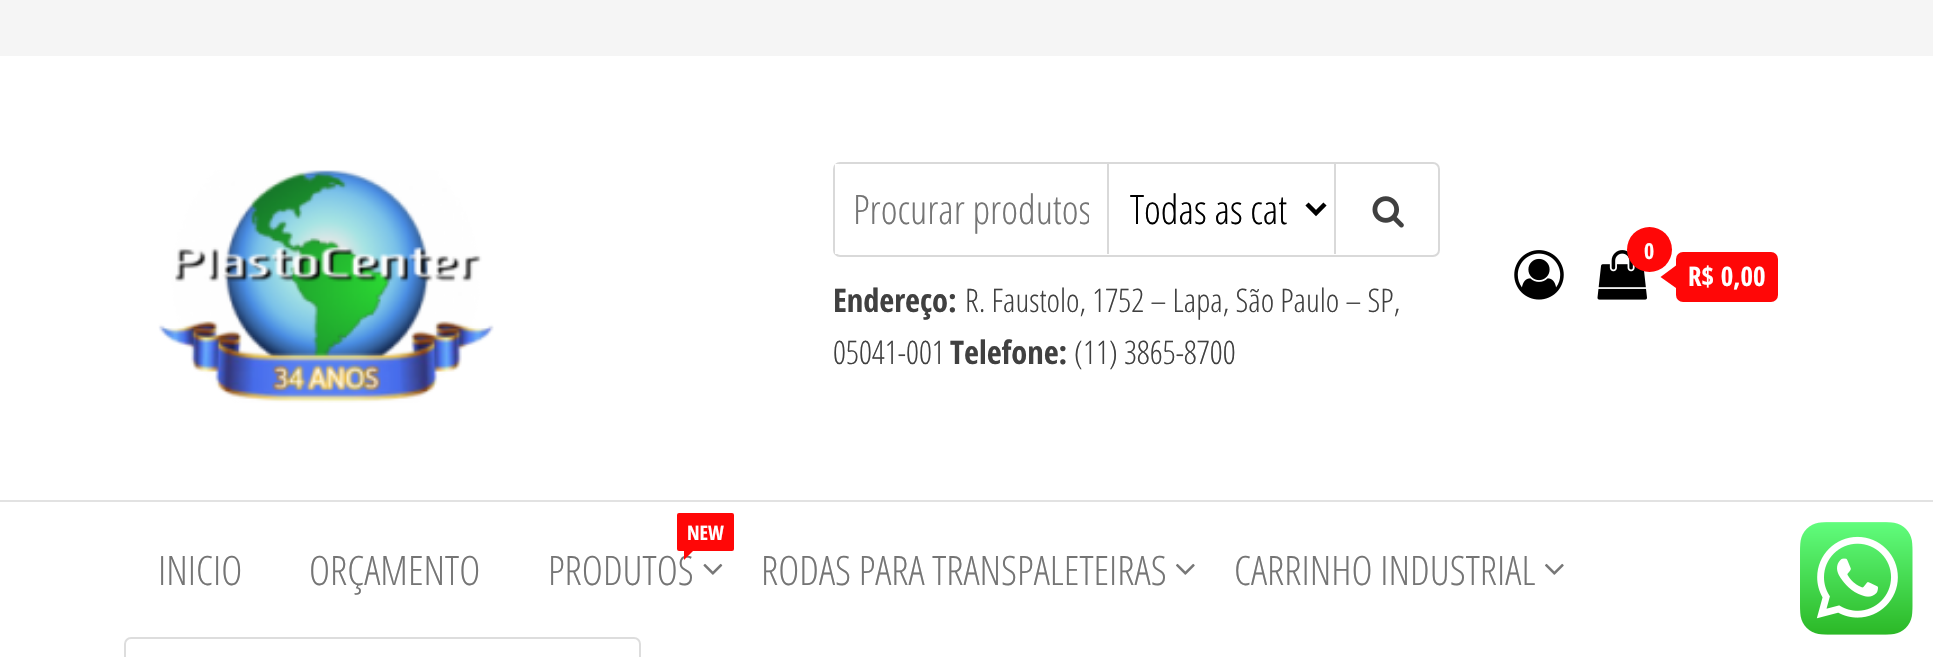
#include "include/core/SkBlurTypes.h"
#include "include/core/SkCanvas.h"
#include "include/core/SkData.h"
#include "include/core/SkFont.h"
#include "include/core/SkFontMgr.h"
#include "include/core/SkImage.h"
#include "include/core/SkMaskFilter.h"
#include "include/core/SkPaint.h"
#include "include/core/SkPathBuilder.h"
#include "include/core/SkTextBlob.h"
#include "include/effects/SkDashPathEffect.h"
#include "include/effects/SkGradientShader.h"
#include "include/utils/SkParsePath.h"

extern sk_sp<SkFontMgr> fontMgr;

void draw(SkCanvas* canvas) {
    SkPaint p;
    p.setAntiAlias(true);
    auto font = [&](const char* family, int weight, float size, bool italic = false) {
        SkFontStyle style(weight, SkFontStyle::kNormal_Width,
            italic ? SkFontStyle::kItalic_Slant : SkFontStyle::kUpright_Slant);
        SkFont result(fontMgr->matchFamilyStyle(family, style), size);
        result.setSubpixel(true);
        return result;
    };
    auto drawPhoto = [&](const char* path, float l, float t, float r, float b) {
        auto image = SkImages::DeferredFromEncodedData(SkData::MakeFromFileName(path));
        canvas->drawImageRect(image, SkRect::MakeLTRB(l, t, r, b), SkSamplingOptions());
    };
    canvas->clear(0xFFF5F5F5);
    p.setColor(0xFFFFFFFF);
    canvas->drawRect(SkRect::MakeLTRB(0, 56, 1933, 500), p);
    drawPhoto("media/1.png", 158, 170, 494, 403);
    p.setStyle(SkPaint::kStroke_Style);
    p.setStrokeWidth(2);
    p.setColor(0xFFD9D9D9);
    canvas->drawRoundRect(SkRect::MakeLTRB(834, 163, 1439, 256), 6, 6, p);
    p.setStyle(SkPaint::kFill_Style);
    p.setColor(0xFFFFFFFF);
    canvas->drawRect(SkRect::MakeLTRB(835, 164, 839, 254), p);
    p.setColor(0xFFD9D9D9);
    canvas->drawRect(SkRect::MakeLTRB(1107, 164, 1109, 254), p);
    canvas->save();
    canvas->clipRect(SkRect::MakeLTRB(853, 182, 1089, 236));
    auto font1 = font("Open Sans Condensed", 300, 40.5f);
    p.setColor(0xFF757575);
    canvas->drawString("Procurar produtos", 853, 224, font1, p);
    canvas->restore();
    p.setStyle(SkPaint::kStroke_Style);
    p.setStrokeWidth(4.5f);
    p.setColor(0xFF000000);
    canvas->drawPath(SkPathBuilder().moveTo(1307, 204).lineTo(1316, 213).lineTo(1325, 204).detach(), p);
    p.setStyle(SkPaint::kFill_Style);
    canvas->drawString("Todas as cat", 1130, 224, font1, p);
    p.setColor(0xFFD9D9D9);
    canvas->drawRect(SkRect::MakeLTRB(1334, 164, 1336, 254), p);
    drawPhoto("media/2.png", 1372, 196, 1404, 228);
    auto font2 = font("Open Sans Condensed", 700, 32.4f);
    p.setColor(0xFF404040);
    canvas->drawString("Endereço:", 833, 312, font2, p);
    auto font3 = font("Open Sans Condensed", 300, 32.4f);
    canvas->drawString("R. Faustolo, 1752 – Lapa, São Paulo – SP,", 965, 312, font3, p);
    canvas->drawString("05041-001", 833, 364, font3, p);
    canvas->drawString("Telefone:", 950, 364, font2, p);
    canvas->drawString("(11) 3865-8700", 1074, 364, font3, p);
    drawPhoto("media/3.png", 1514, 250, 1564, 300);
    drawPhoto("media/4.png", 1597, 250, 1647, 300);
    p.setColor(0xFFFF0707);
    canvas->drawCircle(1649.5f, 249.5f, 22.5f, p);
    auto font4 = font("Open Sans Condensed", 700, 22);
    p.setColor(0xFFFFFFFF);
    canvas->drawString("0", 1644, 259, font4, p);
    p.setColor(0xFFFF0707);
    canvas->drawRoundRect(SkRect::MakeLTRB(1676, 252, 1778, 302), 7, 7, p);
    canvas->drawPath(SkPathBuilder().moveTo(1676, 265.5f).lineTo(1676, 288).lineTo(1660.5f, 277).close().detach(), p);
    auto font5 = font("Open Sans Condensed", 700, 27);
    p.setColor(0xFFFFFFFF);
    canvas->drawString("R$ 0,00", 1688, 286, font5, p);
    canvas->drawRect(SkRect::MakeLTRB(0, 502, 1933, 657), p);
    p.setColor(0xFFE2E2E2);
    canvas->drawRect(SkRect::MakeLTRB(0, 500, 1933, 502), p);
    p.setColor(0xFF757575);
    canvas->drawString("INICIO", 158, 585, font1, p);
    canvas->drawString("ORÇAMENTO", 309, 585, font1, p);
    p.setColor(0xFFFF0707);
    canvas->drawRoundRect(SkRect::MakeLTRB(677, 513, 734, 551), 2, 2, p);
    auto font6 = font("Open Sans Condensed", 700, 20);
    p.setColor(0xFFFFFFFF);
    canvas->drawString("NEW", 687, 540, font6, p);
    p.setColor(0xFF757575);
    canvas->drawString("PRODUTOS", 548, 585, font1, p);
    p.setColor(0xFFFF0707);
    canvas->drawPath(SkPathBuilder().moveTo(684, 549).lineTo(695, 549).lineTo(684, 560).close().detach(), p);
    drawPhoto("media/5.png", 703, 563, 723, 575);
    p.setColor(0xFF757575);
    canvas->drawString("RODAS PARA TRANSPALETEIRAS", 761, 585, font1, p);
    drawPhoto("media/6.png", 1176, 563, 1195, 575);
    canvas->drawString("CARRINHO INDUSTRIAL", 1234, 585, font1, p);
    drawPhoto("media/6.png", 1545, 563, 1564, 575);
    p.setStyle(SkPaint::kStroke_Style);
    p.setStrokeWidth(2);
    p.setColor(0xFFDDDDDD);
    canvas->drawRoundRect(SkRect::MakeLTRB(125, 638, 640, 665), 6, 6, p);
    drawPhoto("media/7.png", 1800, 522, 1913, 635);
}
